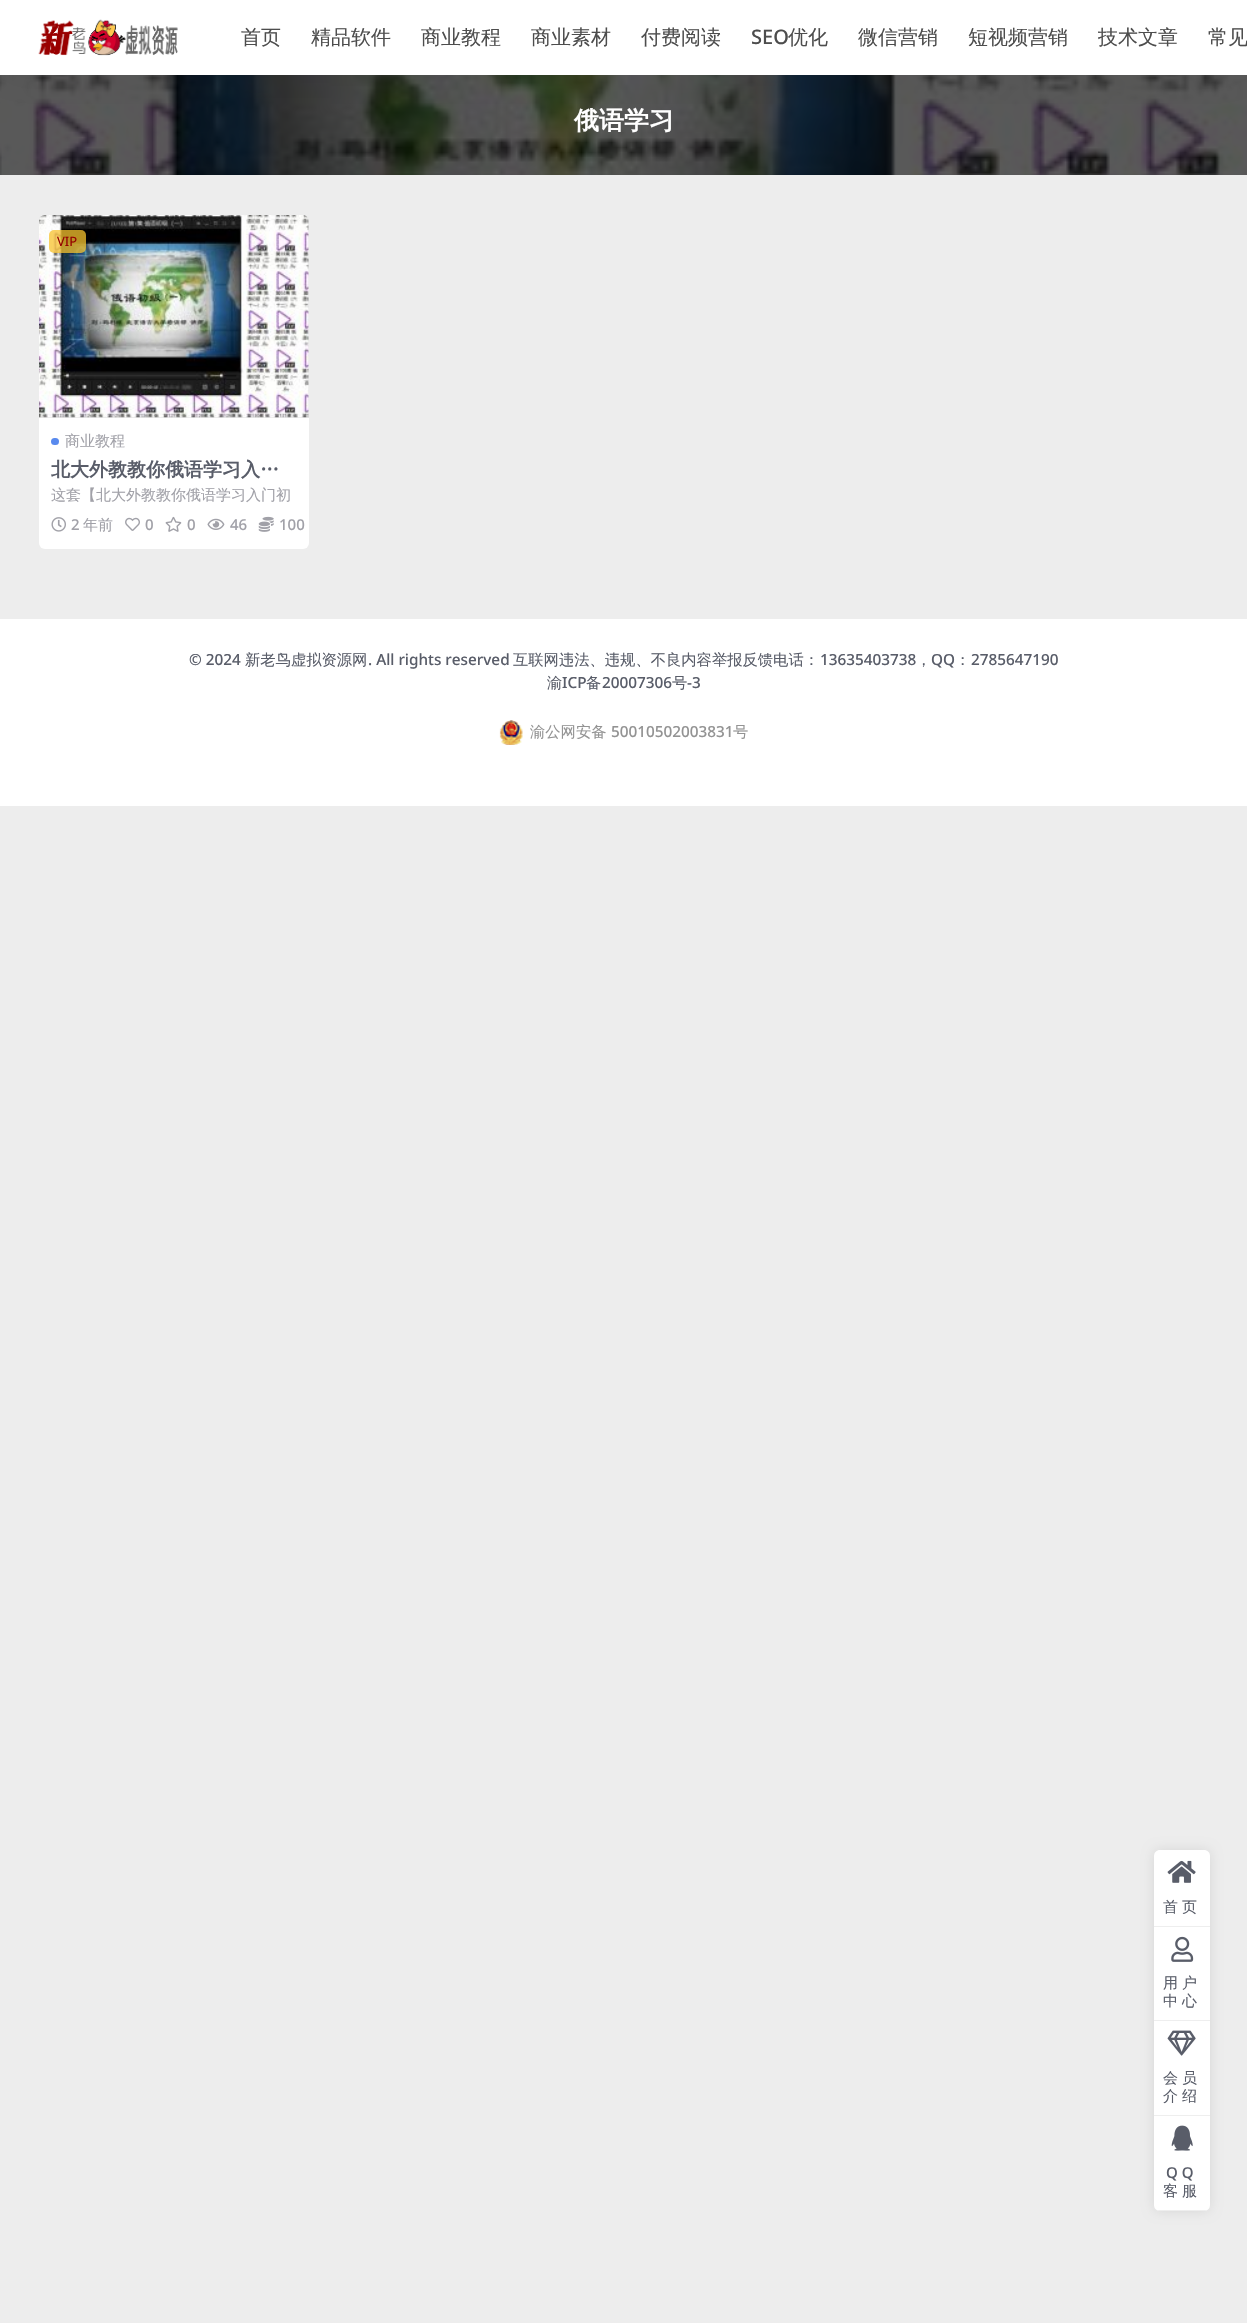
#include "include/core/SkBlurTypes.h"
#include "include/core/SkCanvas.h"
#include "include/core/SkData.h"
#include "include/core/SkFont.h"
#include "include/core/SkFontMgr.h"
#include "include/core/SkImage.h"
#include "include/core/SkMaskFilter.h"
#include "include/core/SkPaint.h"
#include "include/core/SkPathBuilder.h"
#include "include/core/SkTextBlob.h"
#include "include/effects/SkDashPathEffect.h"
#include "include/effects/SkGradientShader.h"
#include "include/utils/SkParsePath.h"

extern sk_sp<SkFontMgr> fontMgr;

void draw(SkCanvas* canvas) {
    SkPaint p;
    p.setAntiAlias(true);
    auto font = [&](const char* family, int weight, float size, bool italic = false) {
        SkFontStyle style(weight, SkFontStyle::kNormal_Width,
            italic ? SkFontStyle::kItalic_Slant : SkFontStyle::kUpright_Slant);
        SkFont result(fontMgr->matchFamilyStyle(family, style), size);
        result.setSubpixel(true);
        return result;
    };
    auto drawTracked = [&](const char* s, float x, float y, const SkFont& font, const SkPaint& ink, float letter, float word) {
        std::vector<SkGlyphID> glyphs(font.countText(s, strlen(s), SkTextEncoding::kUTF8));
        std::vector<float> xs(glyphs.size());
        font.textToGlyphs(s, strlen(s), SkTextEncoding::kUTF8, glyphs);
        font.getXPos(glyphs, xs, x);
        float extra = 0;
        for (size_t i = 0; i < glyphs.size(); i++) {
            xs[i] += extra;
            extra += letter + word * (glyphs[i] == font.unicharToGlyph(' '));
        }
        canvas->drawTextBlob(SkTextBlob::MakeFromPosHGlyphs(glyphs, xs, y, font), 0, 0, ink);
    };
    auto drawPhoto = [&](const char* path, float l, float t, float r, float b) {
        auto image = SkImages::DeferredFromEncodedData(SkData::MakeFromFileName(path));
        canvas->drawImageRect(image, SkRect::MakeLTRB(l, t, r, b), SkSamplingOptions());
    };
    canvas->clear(0xFFEDEDED);
    drawPhoto("media/2.png", 0, 75, 1247, 175);
    p.setColor(0x12000000);
    p.setMaskFilter(SkMaskFilter::MakeBlur(kNormal_SkBlurStyle, 19));
    canvas->drawRect(SkRect::MakeLTRB(0, 0, 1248, 75), p);
    p.setMaskFilter(nullptr);
    p.setColor(0xFFFFFFFF);
    canvas->drawRect(SkRect::MakeLTRB(0, 0, 1247, 75), p);
    drawPhoto("media/1.png", 38, 19, 178, 56);
    auto font1 = font("WenQuanYi Zen Hei", 500, 20);
    p.setColor(0xFF4D4D4D);
    {
        const struct { const char* s; float x, y; } items[] = {
            {"首页", 241, 44},
            {"精品软件", 311, 44},
            {"商业教程", 421, 44},
            {"商业素材", 531, 44},
            {"付费阅读", 641, 44},
        };
        for (auto [s, x, y] : items) {
            canvas->drawString(s, x, y, font1, p);
        }
    }
    auto font2 = font("Noto Sans", 500, 20);
    canvas->drawString("SEO", 751, 44, font2, p);
    {
        const struct { const char* s; float x, y; } items[] = {
            {"优化", 788, 44},
            {"微信营销", 858, 44},
            {"短视频营销", 968, 44},
            {"技术文章", 1098, 44},
            {"常见", 1208, 44},
        };
        for (auto [s, x, y] : items) {
            canvas->drawString(s, x, y, font1, p);
        }
    }
    auto font3 = font("WenQuanYi Zen Hei", 700, 25);
    p.setColor(0xFFFFFFFF);
    canvas->drawString("俄语学习", 574, 129, font3, p);
    canvas->drawRoundRect(SkRect::MakeLTRB(39, 215, 309, 549), 6, 6, p);
    p.setColor(0xFFE7E7E7);
    canvas->drawPath(SkPathBuilder().moveTo(45, 215).lineTo(303, 215).cubicTo(306.5f, 215, 309, 217.5f, 309, 221).lineTo(309, 418).lineTo(39, 418).lineTo(39, 221).cubicTo(39, 217.5f, 41.5f, 215, 45, 215).close().detach(), p);
    drawPhoto("media/3.png", 39, 215, 309, 418);
    p.setColor(0xBFF7C32E);
    canvas->drawRoundRect(SkRect::MakeLTRB(49, 230, 86, 253), 5, 5, p);
    auto font4 = font("Noto Sans", 400, 13);
    p.setColor(0xFF950000);
    canvas->drawString("VIP", 57, 246, font4, p);
    p.setColor(0xFF598AEE);
    canvas->drawRoundRect(SkRect::MakeLTRB(51, 438, 59, 445), 3.5f, 3.5f, p);
    auto font5 = font("WenQuanYi Zen Hei", 500, 15);
    p.setColor(0xFFA1A1A8);
    canvas->drawString("商业教程", 65, 446, font5, p);
    auto font6 = font("WenQuanYi Zen Hei", 700, 19);
    p.setColor(0xFF595D69);
    canvas->drawString("北大外教教你俄语学习入…", 51, 476, font6, p);
    p.setColor(0xFFA1A1A8);
    canvas->drawString("这套【北大外教教你俄语学习入门初", 51, 500, font5, p);
    drawPhoto("media/4.png", 51, 517, 66, 532);
    auto font7 = font("Noto Sans", 500, 15);
    canvas->drawString("2", 71, 530, font7, p);
    canvas->drawString("年前", 83, 530, font5, p);
    drawPhoto("media/5.png", 125, 517, 140, 531);
    canvas->drawString("0", 145, 530, font7, p);
    drawPhoto("media/6.png", 165, 516, 182, 532);
    canvas->drawString("0", 187, 530, font7, p);
    drawPhoto("media/7.png", 207, 518, 225, 530);
    canvas->drawString("46", 230, 530, font7, p);
    drawPhoto("media/8.png", 258, 516, 274, 532);
    canvas->drawString("100", 279, 530, font7, p);
    p.setColor(0xFFFFFFFF);
    canvas->drawRect(SkRect::MakeLTRB(0, 619, 1247, 806), p);
    auto font8 = font("Noto Sans", 500, 15.3f);
    p.setColor(0xFF595D69);
    canvas->drawString("© 2024", 189, 665, font8, p);
    auto font9 = font("WenQuanYi Zen Hei", 500, 15.3f);
    canvas->drawString("新老鸟虚拟资源网", 245, 665, font9, p);
    canvas->drawString(". All rights reserved", 368, 665, font8, p);
    canvas->drawString("互联网违法、违规、不良内容举报反馈电话：", 513, 665, font9, p);
    canvas->drawString("13635403738", 820, 665, font8, p);
    canvas->drawString("，", 916, 665, font9, p);
    canvas->drawString("QQ", 931, 665, font8, p);
    canvas->drawString("：", 955, 665, font9, p);
    canvas->drawString("2785647190", 971, 665, font8, p);
    canvas->drawString("渝", 547, 688, font9, p);
    canvas->drawString("ICP", 562, 688, font8, p);
    canvas->drawString("备", 586, 688, font9, p);
    canvas->drawString("20007306", 602, 688, font8, p);
    canvas->drawString("号", 672, 688, font9, p);
    canvas->drawString("-3", 687, 688, font8, p);
    drawPhoto("media/9.png", 499, 720, 523, 745);
    p.setColor(0xFF939393);
    canvas->drawString("渝公网安备", 530, 737, font9, p);
    canvas->drawString("50010502003831", 611, 737, font8, p);
    canvas->drawString("号", 733, 737, font9, p);
    p.setColor(0x1A000000);
    p.setMaskFilter(SkMaskFilter::MakeBlur(kNormal_SkBlurStyle, 6));
    canvas->drawRoundRect(SkRect::MakeLTRB(1154, 1850, 1210, 2211), 6, 6, p);
    p.setMaskFilter(nullptr);
    p.setColor(0xFFFFFFFF);
    canvas->drawPath(SkPathBuilder().moveTo(1160, 1850).lineTo(1204, 1850).cubicTo(1207.5f, 1850, 1210, 1852.5f, 1210, 1856).lineTo(1210, 1928).lineTo(1154, 1928).lineTo(1154, 1856).cubicTo(1154, 1852.5f, 1156.5f, 1850, 1160, 1850).close().detach(), p);
    p.setColor(0xFFEEEEEE);
    canvas->drawRect(SkRect::MakeLTRB(1154, 1926, 1210, 1927), p);
    drawPhoto("media/10.png", 1167, 1860, 1196, 1883);
    p.setColor(0xFF595D69);
    drawTracked("首页", 1163, 1912, font5, p, 4, 0);
    p.setColor(0xFFFFFFFF);
    canvas->drawRect(SkRect::MakeLTRB(1154, 1928, 1210, 2020), p);
    p.setColor(0xFFEEEEEE);
    canvas->drawRect(SkRect::MakeLTRB(1154, 2020, 1210, 2021), p);
    drawPhoto("media/11.png", 1171, 1936, 1194, 1962);
    p.setColor(0xFF595D69);
    drawTracked("用户", 1163, 1988, font5, p, 4, 0);
    drawTracked("中心", 1163, 2006, font5, p, 4, 0);
    p.setColor(0xFFFFFFFF);
    canvas->drawRect(SkRect::MakeLTRB(1154, 2021, 1210, 2115), p);
    p.setColor(0xFFEEEEEE);
    canvas->drawRect(SkRect::MakeLTRB(1154, 2115, 1210, 2116), p);
    drawPhoto("media/12.png", 1167, 2030, 1196, 2056);
    p.setColor(0xFF595D69);
    drawTracked("会员", 1163, 2083, font5, p, 4, 0);
    drawTracked("介绍", 1163, 2101, font5, p, 4, 0);
    p.setColor(0xFFFFFFFF);
    canvas->drawPath(SkPathBuilder().moveTo(1154, 2116).lineTo(1210, 2116).lineTo(1210, 2205).cubicTo(1210, 2208.5f, 1207.5f, 2211, 1204, 2211).lineTo(1160, 2211).cubicTo(1156.5f, 2211, 1154, 2208.5f, 1154, 2205).close().detach(), p);
    canvas->save();
    canvas->clipPath(SkPathBuilder().moveTo(1160, 1850).lineTo(1204, 1850).cubicTo(1207.5f, 1850, 1210, 1852.5f, 1210, 1856).lineTo(1210, 2205).cubicTo(1210, 2208.5f, 1207.5f, 2211, 1204, 2211).lineTo(1160, 2211).cubicTo(1156.5f, 2211, 1154, 2208.5f, 1154, 2205).lineTo(1154, 1856).cubicTo(1154, 1852.5f, 1156.5f, 1850, 1160, 1850).close().detach(), true);
    p.setColor(0xFFEEEEEE);
    canvas->drawRect(SkRect::MakeLTRB(1154, 2210, 1210, 2211), p);
    canvas->restore();
    drawPhoto("media/13.png", 1171, 2125, 1193, 2151);
    p.setColor(0xFF595D69);
    drawTracked("QQ", 1166, 2178, font7, p, 4, 0);
    drawTracked("客服", 1163, 2196, font5, p, 4, 0);
}
